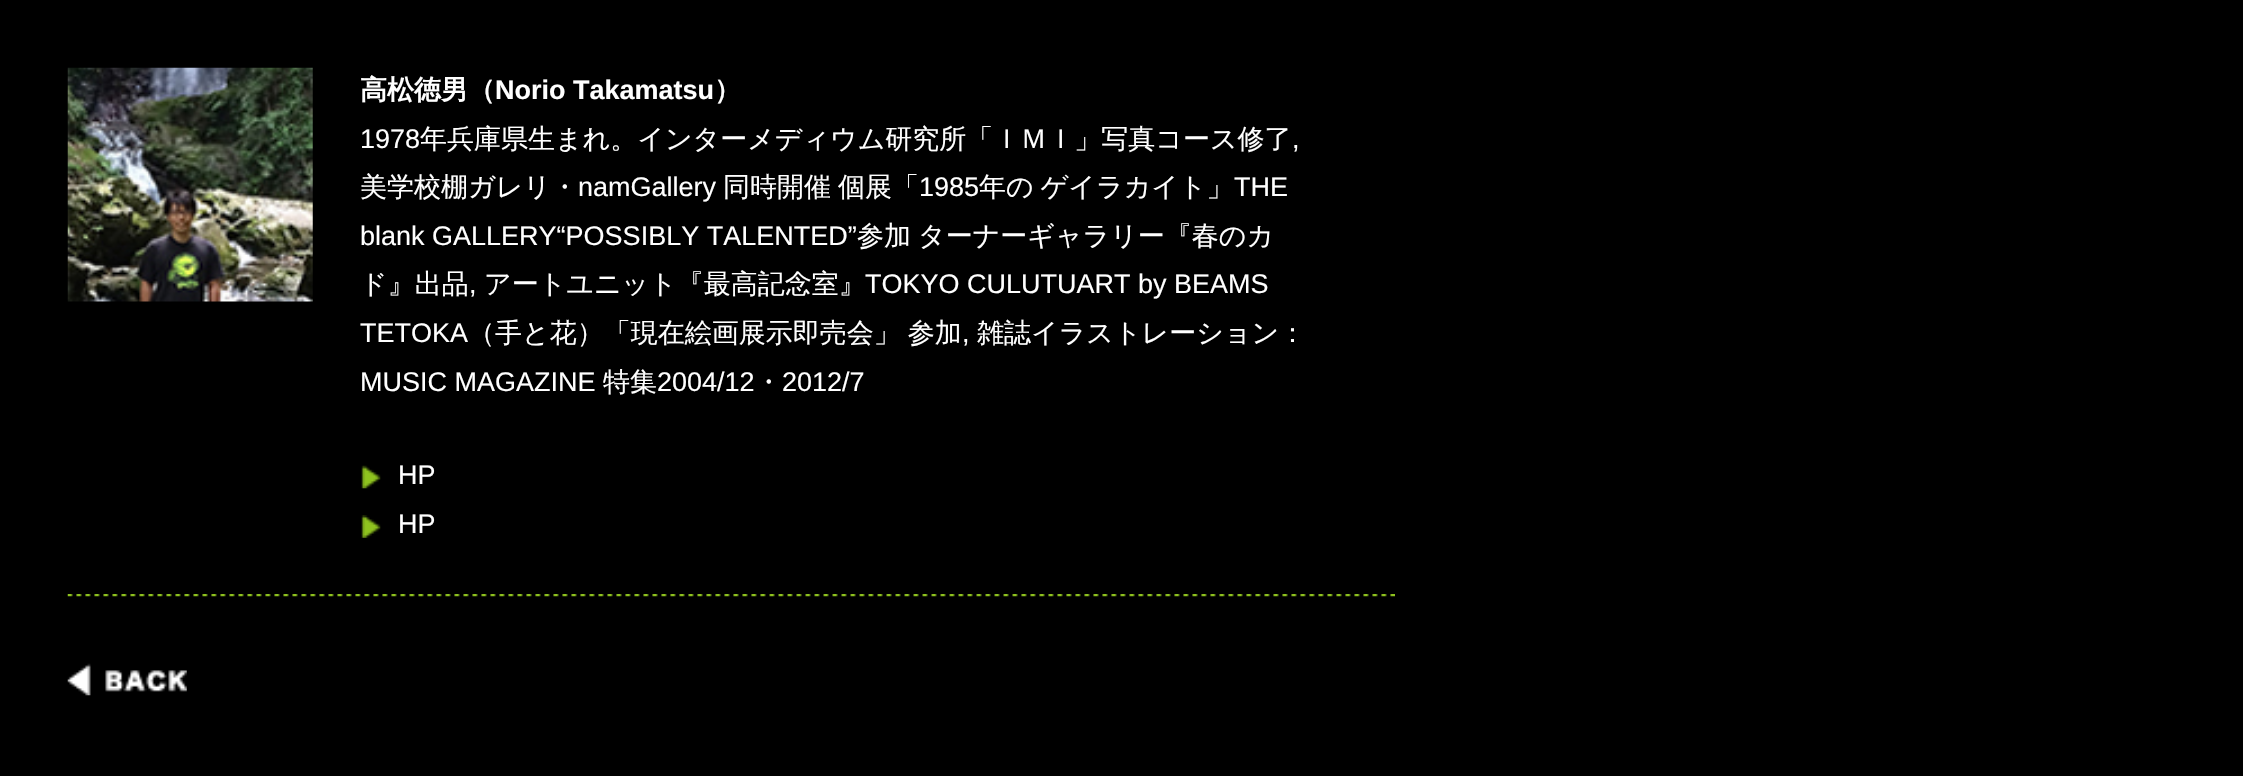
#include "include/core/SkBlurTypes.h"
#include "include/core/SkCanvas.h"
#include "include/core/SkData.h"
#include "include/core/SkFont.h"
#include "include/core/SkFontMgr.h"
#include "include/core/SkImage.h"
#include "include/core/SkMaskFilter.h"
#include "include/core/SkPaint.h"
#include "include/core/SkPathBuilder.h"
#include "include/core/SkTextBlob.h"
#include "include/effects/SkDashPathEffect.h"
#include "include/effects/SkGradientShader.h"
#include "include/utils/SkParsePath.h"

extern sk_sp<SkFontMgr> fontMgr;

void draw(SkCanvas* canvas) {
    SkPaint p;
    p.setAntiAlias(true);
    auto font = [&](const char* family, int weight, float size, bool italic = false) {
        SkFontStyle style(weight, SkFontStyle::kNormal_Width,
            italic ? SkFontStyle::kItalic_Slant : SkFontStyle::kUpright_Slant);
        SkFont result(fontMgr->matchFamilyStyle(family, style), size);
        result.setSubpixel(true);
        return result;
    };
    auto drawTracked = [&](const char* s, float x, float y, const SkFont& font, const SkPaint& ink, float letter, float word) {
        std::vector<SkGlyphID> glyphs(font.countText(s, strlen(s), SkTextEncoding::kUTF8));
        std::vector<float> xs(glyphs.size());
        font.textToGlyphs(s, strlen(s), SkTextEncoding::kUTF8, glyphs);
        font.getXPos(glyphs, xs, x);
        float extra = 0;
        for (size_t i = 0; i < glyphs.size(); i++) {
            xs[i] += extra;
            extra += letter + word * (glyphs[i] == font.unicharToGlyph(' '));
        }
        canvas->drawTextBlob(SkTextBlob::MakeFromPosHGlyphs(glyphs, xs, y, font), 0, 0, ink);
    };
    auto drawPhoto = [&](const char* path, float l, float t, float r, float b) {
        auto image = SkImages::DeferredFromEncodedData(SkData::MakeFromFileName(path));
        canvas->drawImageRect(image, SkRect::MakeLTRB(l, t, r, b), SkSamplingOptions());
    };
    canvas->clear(0xFF000000);
    drawPhoto("media/1.png", 67, 67, 313, 302);
    auto font1 = font("WenQuanYi Zen Hei", 700, 27);
    p.setColor(0xFFFFFFFF);
    canvas->drawString("高松徳男（", 360, 99, font1, p);
    auto font2 = font("Liberation Sans", 700, 27);
    canvas->drawString("Norio Takamatsu", 495, 99, font2, p);
    canvas->drawString("）", 714, 99, font1, p);
    auto font3 = font("Liberation Sans", 400, 27);
    canvas->drawString("1978", 360, 148, font3, p);
    auto font4 = font("WenQuanYi Zen Hei", 500, 27);
    canvas->drawString("年兵庫県生まれ。インターメディウム研究所「ＩＭＩ」写真コース修了", 420, 148, font4, p);
    canvas->drawString(",", 1292, 148, font3, p);
    canvas->drawString("美学校棚ガレリ・", 360, 196, font4, p);
    canvas->drawString("namGallery", 578, 196, font3, p);
    drawTracked("同時開催 個展「", 723, 196, font4, p, 0, -1);
    canvas->drawString("1985", 919, 196, font3, p);
    drawTracked("年の ゲイラカイト」", 979, 196, font4, p, 0, -1);
    canvas->drawString("THE", 1234, 196, font3, p);
    canvas->drawString("blank GALLERY“POSSIBLY TALENTED”", 360, 245, font3, p);
    {
        const struct { const char* s; float x, y; } items[] = {
            {"参加", 857, 245},
            {"ターナーギャラリー『春のカ", 918, 245},
            {"ド』出品", 360, 293},
        };
        for (auto [s, x, y] : items) {
            canvas->drawString(s, x, y, font4, p);
        }
    }
    canvas->drawString(",", 469, 293, font3, p);
    canvas->drawString("アートユニット『最高記念室』", 484, 293, font4, p);
    canvas->drawString("TOKYO CULUTUART by BEAMS", 865, 293, font3, p);
    canvas->drawString("TETOKA", 360, 342, font3, p);
    drawTracked("（手と花）「現在絵画展示即売会」 参加", 468, 342, font4, p, 0, -1);
    canvas->drawString(",", 962, 342, font3, p);
    canvas->drawString("雑誌イラストレーション：", 977, 342, font4, p);
    canvas->drawString("MUSIC MAGAZINE", 360, 391, font3, p);
    canvas->drawString("特集", 603, 391, font4, p);
    canvas->drawString("2004/12", 657, 391, font3, p);
    canvas->drawString("・", 755, 391, font4, p);
    canvas->drawString("2012/7", 782, 391, font3, p);
    drawPhoto("media/2.png", 361, 465, 381, 489);
    canvas->drawString("HP", 398, 484, font3, p);
    drawPhoto("media/3.png", 361, 515, 381, 538);
    canvas->drawString("HP", 398, 533, font3, p);
    drawPhoto("media/4.png", 67, 594, 1395, 597);
    drawPhoto("media/5.png", 67, 663, 187, 696);
}
